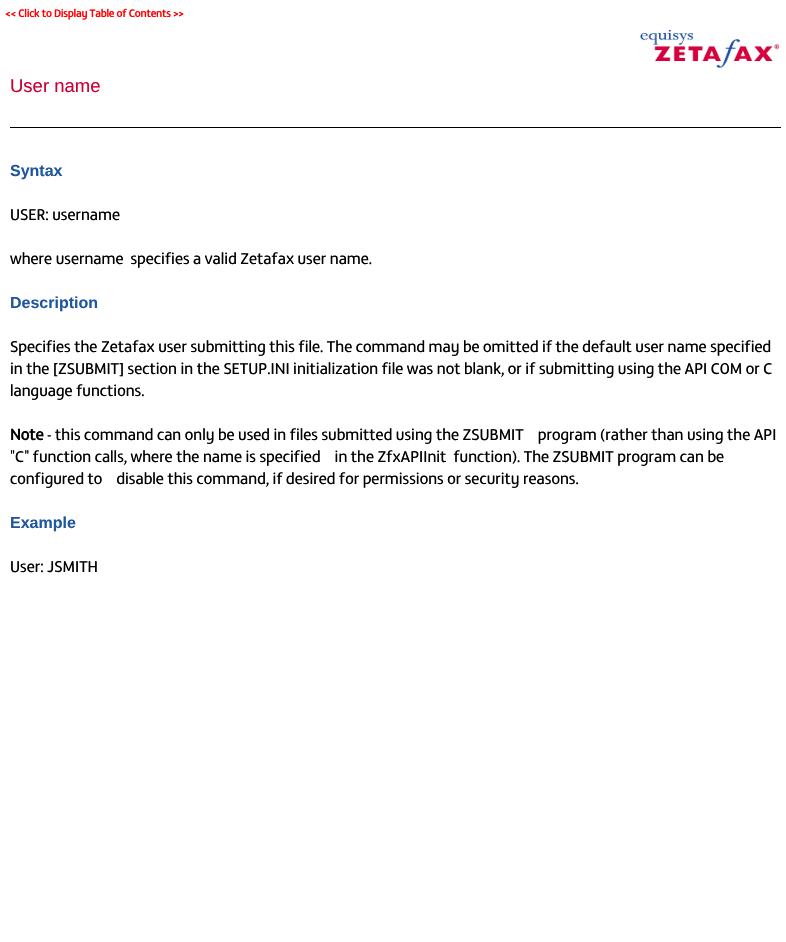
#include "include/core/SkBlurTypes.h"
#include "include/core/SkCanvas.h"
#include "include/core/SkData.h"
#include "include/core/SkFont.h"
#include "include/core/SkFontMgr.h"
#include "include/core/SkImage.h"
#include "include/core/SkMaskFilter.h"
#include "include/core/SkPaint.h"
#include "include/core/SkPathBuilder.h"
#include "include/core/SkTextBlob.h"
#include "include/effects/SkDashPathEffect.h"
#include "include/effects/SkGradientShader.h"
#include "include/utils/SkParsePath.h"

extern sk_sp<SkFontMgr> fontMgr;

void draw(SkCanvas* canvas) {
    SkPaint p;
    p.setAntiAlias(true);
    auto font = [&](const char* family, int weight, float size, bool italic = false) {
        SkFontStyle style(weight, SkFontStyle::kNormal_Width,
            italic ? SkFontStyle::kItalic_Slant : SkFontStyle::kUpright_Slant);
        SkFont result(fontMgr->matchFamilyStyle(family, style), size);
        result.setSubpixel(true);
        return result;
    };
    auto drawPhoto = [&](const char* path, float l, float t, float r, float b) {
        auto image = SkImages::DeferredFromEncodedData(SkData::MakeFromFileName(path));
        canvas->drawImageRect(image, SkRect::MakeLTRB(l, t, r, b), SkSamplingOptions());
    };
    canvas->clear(0xFFFFFFFF);
    auto font1 = font("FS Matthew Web", 700, 10.7f);
    p.setColor(0xFFFF0000);
    canvas->drawString("<< Click to Display Table of Contents >>", 5, 17, font1, p);
    drawPhoto("media/1.png", 640, 30, 779, 68);
    auto font2 = font("Liberation Sans", 400, 18.5f);
    p.setColor(0xFFCC0033);
    canvas->drawString("User name", 10, 92, font2, p);
    p.setColor(0xFF000000);
    canvas->drawRect(SkRect::MakeLTRB(10, 127, 781, 128), p);
    auto font3 = font("Liberation Sans", 700, 16);
    p.setColor(0xFF1E57A0);
    canvas->drawString("Syntax", 10, 176, font3, p);
    auto font4 = font("FS Matthew Web", 400, 16);
    p.setColor(0xFF000000);
    canvas->drawString("USER: username", 10, 220, font4, p);
    canvas->drawString("where username  specifies a valid Zetafax user name.", 10, 264, font4, p);
    p.setColor(0xFF1E57A0);
    canvas->drawString("Description", 10, 308, font3, p);
    p.setColor(0xFF000000);
    {
        const struct { const char* s; float x, y; } items[] = {
            {"Specifies the Zetafax user submitting this file. The command may be omitted if the default user name specified", 10, 352},
            {"in the [ZSUBMIT] section in the SETUP.INI initialization file was not blank, or if submitting using the API COM or C", 10, 374},
            {"language functions.", 10, 396},
        };
        for (auto [s, x, y] : items) {
            canvas->drawString(s, x, y, font4, p);
        }
    }
    auto font5 = font("FS Matthew Web", 700, 16);
    canvas->drawString("Note", 10, 440, font5, p);
    {
        const struct { const char* s; float x, y; } items[] = {
            {"- this command can only be used in files submitted using the ZSUBMIT    program (rather than using the API", 47, 440},
            {"\"C\" function calls, where the name is specified    in the ZfxAPIInit  function). The ZSUBMIT program can be", 10, 462},
            {"configured to    disable this command, if desired for permissions or security reasons.", 10, 484},
        };
        for (auto [s, x, y] : items) {
            canvas->drawString(s, x, y, font4, p);
        }
    }
    p.setColor(0xFF1E57A0);
    canvas->drawString("Example", 10, 528, font3, p);
    p.setColor(0xFF000000);
    canvas->drawString("User: JSMITH", 10, 572, font4, p);
}
